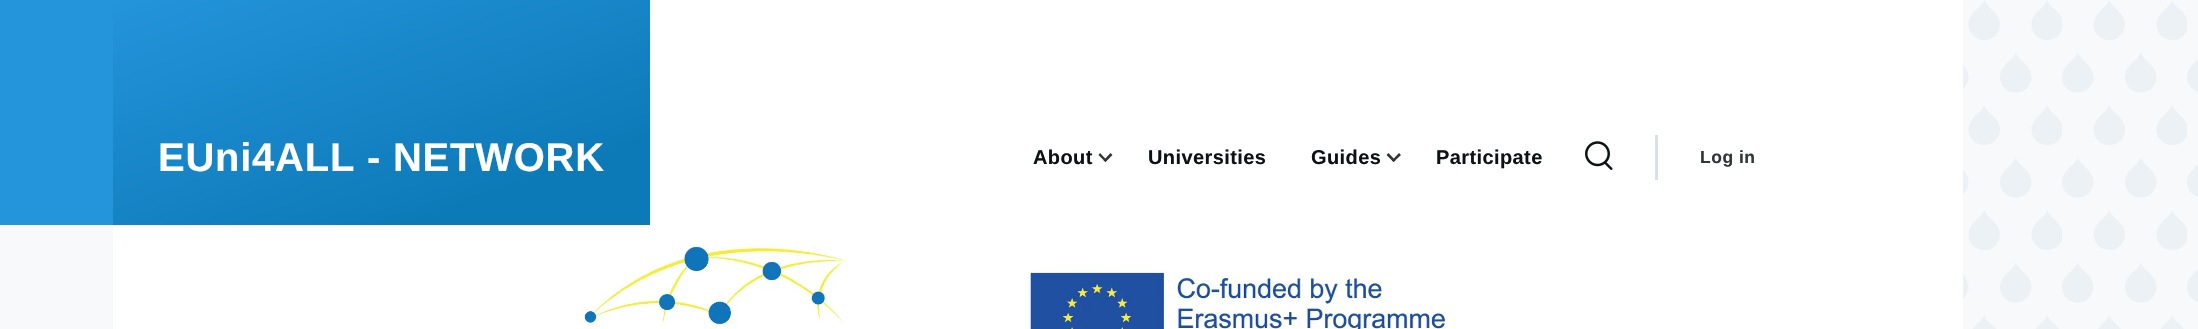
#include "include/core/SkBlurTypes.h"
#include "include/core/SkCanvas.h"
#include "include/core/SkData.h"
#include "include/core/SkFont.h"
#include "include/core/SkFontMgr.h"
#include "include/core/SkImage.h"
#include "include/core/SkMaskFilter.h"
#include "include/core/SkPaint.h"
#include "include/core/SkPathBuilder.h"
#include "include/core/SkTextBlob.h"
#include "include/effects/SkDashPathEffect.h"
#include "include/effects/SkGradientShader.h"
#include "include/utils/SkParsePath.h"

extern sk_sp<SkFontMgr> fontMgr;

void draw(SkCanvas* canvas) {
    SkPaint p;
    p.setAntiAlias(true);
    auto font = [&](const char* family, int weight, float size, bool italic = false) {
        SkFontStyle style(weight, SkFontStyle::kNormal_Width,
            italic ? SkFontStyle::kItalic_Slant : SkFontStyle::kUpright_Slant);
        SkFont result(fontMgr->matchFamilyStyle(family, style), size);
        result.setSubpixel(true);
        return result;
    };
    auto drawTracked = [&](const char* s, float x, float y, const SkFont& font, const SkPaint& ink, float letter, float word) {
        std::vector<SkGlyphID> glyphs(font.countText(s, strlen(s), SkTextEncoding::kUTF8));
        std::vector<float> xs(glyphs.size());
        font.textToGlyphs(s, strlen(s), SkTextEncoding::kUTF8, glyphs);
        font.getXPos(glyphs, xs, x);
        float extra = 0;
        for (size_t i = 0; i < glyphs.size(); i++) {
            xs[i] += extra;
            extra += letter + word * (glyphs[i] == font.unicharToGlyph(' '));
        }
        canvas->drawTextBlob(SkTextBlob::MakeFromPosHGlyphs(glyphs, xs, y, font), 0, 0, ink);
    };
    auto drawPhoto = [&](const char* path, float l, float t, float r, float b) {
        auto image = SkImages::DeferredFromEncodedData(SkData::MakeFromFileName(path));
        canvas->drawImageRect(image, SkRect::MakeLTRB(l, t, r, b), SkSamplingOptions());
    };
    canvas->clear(0xFFF7F9FA);
    drawPhoto("media/1.png", 1963, 0, 2198, 329);
    p.setColor(0xFFFFFFFF);
    canvas->drawRect(SkRect::MakeLTRB(0, 0, 1963, 329), p);
    p.setColor(0xFF2494DB);
    canvas->drawRect(SkRect::MakeLTRB(0, 0, 113, 225), p);
    {
        const SkColor colors[] = {0xFF2494DB, 0xFF0D7AB8};
        const float stops[] = {0, 0.79f};
        const SkPoint ends[] = {{314, -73}, {449, 298}};
        p.setShader(SkGradientShader::MakeLinear(ends, colors, stops, 2, SkTileMode::kClamp));
        p.setAlpha(255);
    }
    canvas->drawRect(SkRect::MakeLTRB(113, 0, 650, 225), p);
    auto font1 = font("Liberation Sans", 700, 40);
    p.setShader(nullptr);
    p.setColor(0xFFFFFFFF);
    drawTracked("EUni4ALL - NETWORK", 158, 171, font1, p, 0.75f, 0);
    auto font2 = font("Liberation Sans", 700, 20);
    p.setColor(0xFF0D1214);
    drawTracked("About", 1033, 164, font2, p, 0.4f, 0);
    p.setColor(0xFF333333);
    canvas->drawPath(SkPathBuilder().moveTo(1110.5f, 153).lineTo(1112.5f, 155).lineTo(1105.5f, 162).lineTo(1103.5f, 160.5f).close().detach(), p);
    canvas->drawPath(SkPathBuilder().moveTo(1100, 153).lineTo(1107, 160.5f).lineTo(1105.5f, 162).lineTo(1098.5f, 155).close().detach(), p);
    p.setColor(0xFF0D1214);
    drawTracked("Universities", 1148, 164, font2, p, 0.4f, 0);
    drawTracked("Guides", 1311, 164, font2, p, 0.4f, 0);
    p.setColor(0xFF333333);
    canvas->drawPath(SkPathBuilder().moveTo(1399, 153).lineTo(1401, 155).lineTo(1393.5f, 162).lineTo(1392, 160.5f).close().detach(), p);
    canvas->drawPath(SkPathBuilder().moveTo(1388.5f, 153).lineTo(1395.5f, 160.5f).lineTo(1393.5f, 162).lineTo(1386.5f, 155).close().detach(), p);
    p.setColor(0xFF0D1214);
    drawTracked("Participate", 1436, 164, font2, p, 0.4f, 0);
    drawPhoto("media/2.png", 1585, 141, 1613, 170);
    p.setColor(0xFFD7E1E8);
    canvas->drawRect(SkRect::MakeLTRB(1655, 135, 1658, 180), p);
    auto font3 = font("Liberation Sans", 700, 17.5f);
    p.setColor(0xFF313637);
    drawTracked("Log in", 1700, 163, font3, p, 0.5f, 0);
    p.setColor(0xFFF7F9FA);
    canvas->drawRect(SkRect::MakeLTRB(0, 226, 113, 329), p);
    drawPhoto("media/3.png", 584, 243, 1448, 329);
}
